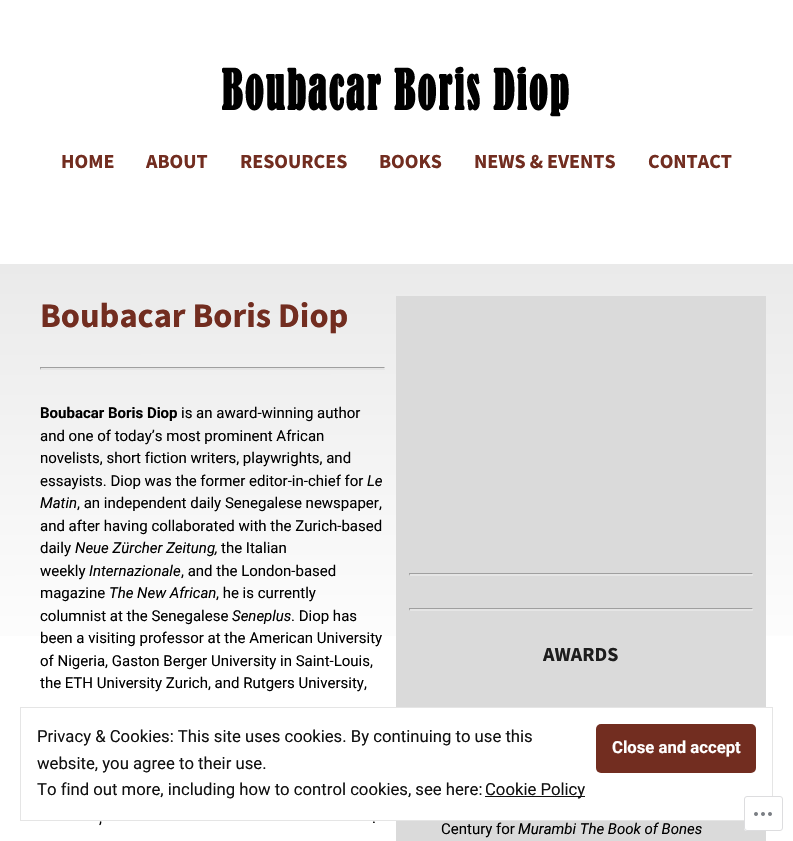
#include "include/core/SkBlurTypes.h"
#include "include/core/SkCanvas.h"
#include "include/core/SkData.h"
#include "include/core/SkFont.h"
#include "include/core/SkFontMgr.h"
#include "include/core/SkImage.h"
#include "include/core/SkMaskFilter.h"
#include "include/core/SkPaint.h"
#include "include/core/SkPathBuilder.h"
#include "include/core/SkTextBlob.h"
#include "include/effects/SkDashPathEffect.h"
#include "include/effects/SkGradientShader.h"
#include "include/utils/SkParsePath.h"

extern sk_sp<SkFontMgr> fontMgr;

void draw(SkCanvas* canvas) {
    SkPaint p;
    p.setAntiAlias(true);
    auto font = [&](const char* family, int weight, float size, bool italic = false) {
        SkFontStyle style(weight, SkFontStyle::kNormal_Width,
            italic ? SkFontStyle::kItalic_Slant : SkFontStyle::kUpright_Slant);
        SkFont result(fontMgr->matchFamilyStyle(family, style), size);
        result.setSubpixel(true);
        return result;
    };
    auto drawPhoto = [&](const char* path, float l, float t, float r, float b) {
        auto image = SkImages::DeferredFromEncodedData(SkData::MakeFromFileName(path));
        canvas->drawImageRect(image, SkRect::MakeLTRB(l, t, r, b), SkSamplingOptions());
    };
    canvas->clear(0xFFFFFFFF);
    drawPhoto("media/1.png", 222, 66, 569, 117);
    auto font1 = font("Source Sans Pro", 700, 20);
    p.setColor(0xFF722D20);
    {
        const struct { const char* s; float x, y; } items[] = {
            {"HOME", 61, 168},
            {"ABOUT", 146, 168},
            {"RESOURCES", 240, 168},
            {"BOOKS", 379, 168},
            {"NEWS & EVENTS", 474, 168},
            {"CONTACT", 648, 168},
        };
        for (auto [s, x, y] : items) {
            canvas->drawString(s, x, y, font1, p);
        }
    }
    {
        const SkColor colors[] = {0xFFEAEAEA, 0xFFFFFFFF};
        const float stops[] = {0, 0.19f};
        const SkPoint ends[] = {{396, 264}, {397, 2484}};
        p.setShader(SkGradientShader::MakeLinear(ends, colors, stops, 2, SkTileMode::kClamp));
        p.setAlpha(255);
    }
    canvas->drawRect(SkRect::MakeLTRB(0, 264, 793, 636), p);
    auto font2 = font("Source Sans Pro", 700, 34.5f);
    p.setShader(nullptr);
    p.setColor(0xFF722D20);
    canvas->drawString("Boubacar Boris Diop", 40, 327, font2, p);
    p.setColor(0xFF9F9F9F);
    canvas->drawRect(SkRect::MakeLTRB(40, 367, 385, 368), p);
    p.setColor(0xFFEEEEEE);
    canvas->drawPath(SkPathBuilder().moveTo(385, 367).lineTo(385, 370).lineTo(384, 368).close().detach(), p);
    p.setColor(0xFFE5E5E5);
    canvas->drawPath(SkPathBuilder().moveTo(385, 370).lineTo(40, 370).lineTo(41, 368).lineTo(384, 368).close().detach(), p);
    p.setColor(0xFF9F9F9F);
    canvas->drawPath(SkPathBuilder().moveTo(40, 370).lineTo(40, 367).lineTo(41, 368).close().detach(), p);
    auto font3 = font("Roboto", 700, 15);
    p.setColor(0xFF000000);
    canvas->drawString("Boubacar Boris Diop", 40, 418, font3, p);
    auto font4 = font("Roboto", 400, 15);
    {
        const struct { const char* s; float x, y; } items[] = {
            {"is an award-winning author", 181, 418},
            {"and one of today’s most prominent African", 40, 441},
            {"novelists, short fiction writers, playwrights, and", 40, 463},
            {"essayists. Diop was the former editor-in-chief for", 40, 486},
        };
        for (auto [s, x, y] : items) {
            canvas->drawString(s, x, y, font4, p);
        }
    }
    auto font5 = font("Roboto", 400, 15, true);
    canvas->drawString("Le", 367, 486, font5, p);
    canvas->drawString("Matin", 40, 508, font5, p);
    {
        const struct { const char* s; float x, y; } items[] = {
            {", an independent daily Senegalese newspaper,", 77, 508},
            {"and after having collaborated with the Zurich-based", 40, 531},
            {"daily", 40, 553},
        };
        for (auto [s, x, y] : items) {
            canvas->drawString(s, x, y, font4, p);
        }
    }
    canvas->drawString("Neue Zürcher Zeitung,", 75, 553, font5, p);
    canvas->drawString("the Italian", 221, 553, font4, p);
    canvas->drawString("weekly", 40, 576, font4, p);
    canvas->drawString("Internazionale", 89, 576, font5, p);
    canvas->drawString(", and the London-based", 181, 576, font4, p);
    canvas->drawString("magazine", 40, 598, font4, p);
    canvas->drawString("The New African", 109, 598, font5, p);
    canvas->drawString(", he is currently", 216, 598, font4, p);
    canvas->drawString("columnist at the Senegalese", 40, 621, font4, p);
    canvas->drawString("Seneplus", 232, 621, font5, p);
    {
        const struct { const char* s; float x, y; } items[] = {
            {". Diop has", 291, 621},
            {"been a visiting professor at the American University", 40, 643},
            {"of Nigeria, Gaston Berger University in Saint-Louis,", 40, 666},
            {"the ETH University Zurich, and Rutgers University,", 40, 688},
            {",", 99, 823},
            {".", 372, 823},
        };
        for (auto [s, x, y] : items) {
            canvas->drawString(s, x, y, font4, p);
        }
    }
    p.setColor(0xFFDADADA);
    canvas->drawRect(SkRect::MakeLTRB(396, 296, 766, 841), p);
    p.setColor(0xFF9F9F9F);
    canvas->drawRect(SkRect::MakeLTRB(409, 573, 753, 574), p);
    p.setColor(0xFFEEEEEE);
    canvas->drawPath(SkPathBuilder().moveTo(753, 573).lineTo(753, 576).lineTo(752, 574).close().detach(), p);
    p.setColor(0xFFE5E5E5);
    canvas->drawPath(SkPathBuilder().moveTo(753, 576).lineTo(409, 576).lineTo(410, 574).lineTo(752, 574).close().detach(), p);
    p.setColor(0xFF9F9F9F);
    canvas->drawPath(SkPathBuilder().moveTo(409, 576).lineTo(409, 573).lineTo(410, 574).close().detach(), p);
    canvas->drawRect(SkRect::MakeLTRB(409, 608, 753, 609), p);
    p.setColor(0xFFEEEEEE);
    canvas->drawPath(SkPathBuilder().moveTo(753, 608).lineTo(753, 611).lineTo(752, 609).close().detach(), p);
    p.setColor(0xFFE5E5E5);
    canvas->drawPath(SkPathBuilder().moveTo(753, 611).lineTo(409, 611).lineTo(410, 609).lineTo(752, 609).close().detach(), p);
    p.setColor(0xFF9F9F9F);
    canvas->drawPath(SkPathBuilder().moveTo(409, 611).lineTo(409, 608).lineTo(410, 609).close().detach(), p);
    p.setColor(0xFF1D1D1D);
    canvas->drawString("AWARDS", 543, 661, font1, p);
    p.setColor(0xFF000000);
    canvas->drawString("Century for", 441, 834, font4, p);
    canvas->drawString("Murambi The Book of Bones", 518, 834, font5, p);
    p.setColor(0xFFFFFFFF);
    canvas->drawRect(SkRect::MakeLTRB(396, 708, 766, 820), p);
    p.setStyle(SkPaint::kStroke_Style);
    p.setStrokeWidth(1);
    p.setColor(0xFFE5E5E5);
    canvas->drawRect(SkRect::MakeLTRB(20.5f, 707.5f, 772.5f, 820.5f), p);
    auto font6 = font("Roboto", 400, 16.7f);
    p.setStyle(SkPaint::kFill_Style);
    p.setColor(0xFF111111);
    canvas->drawString("Privacy & Cookies: This site uses cookies. By continuing to use this", 37, 742, font6, p);
    p.setColor(0xFF722D20);
    canvas->drawRoundRect(SkRect::MakeLTRB(596, 724, 756, 773), 5, 5, p);
    auto font7 = font("Roboto", 700, 16.7f);
    p.setColor(0xFFFFFFFF);
    canvas->drawString("Close and accept", 612, 753, font7, p);
    p.setColor(0xFF111111);
    canvas->drawString("website, you agree to their use.", 37, 769, font6, p);
    canvas->drawString("To find out more, including how to control cookies, see here:", 37, 795, font6, p);
    canvas->drawRect(SkRect::MakeLTRB(485, 796, 585, 797), p);
    canvas->drawString("Cookie Policy", 485, 795, font6, p);
    p.setColor(0xFAFFFFFF);
    canvas->drawRoundRect(SkRect::MakeLTRB(744, 796, 783, 831), 3, 3, p);
    p.setStyle(SkPaint::kStroke_Style);
    p.setColor(0xFADCDCDE);
    canvas->drawRoundRect(SkRect::MakeLTRB(744.5f, 796.5f, 782.5f, 830.5f), 2.5f, 2.5f, p);
    drawPhoto("media/2.png", 754, 812, 772, 816);
}
